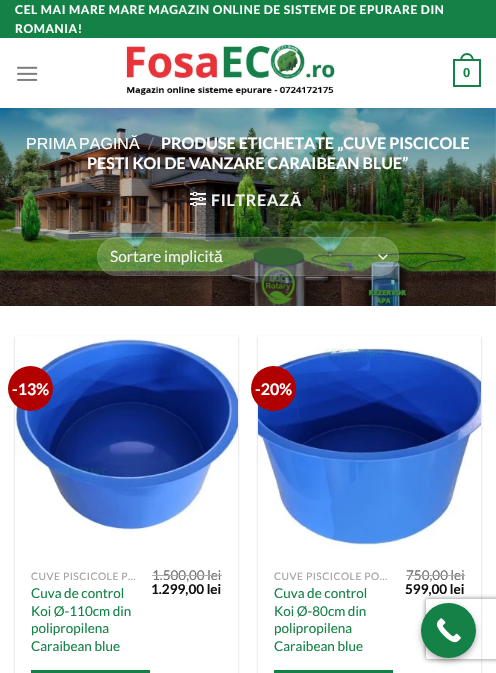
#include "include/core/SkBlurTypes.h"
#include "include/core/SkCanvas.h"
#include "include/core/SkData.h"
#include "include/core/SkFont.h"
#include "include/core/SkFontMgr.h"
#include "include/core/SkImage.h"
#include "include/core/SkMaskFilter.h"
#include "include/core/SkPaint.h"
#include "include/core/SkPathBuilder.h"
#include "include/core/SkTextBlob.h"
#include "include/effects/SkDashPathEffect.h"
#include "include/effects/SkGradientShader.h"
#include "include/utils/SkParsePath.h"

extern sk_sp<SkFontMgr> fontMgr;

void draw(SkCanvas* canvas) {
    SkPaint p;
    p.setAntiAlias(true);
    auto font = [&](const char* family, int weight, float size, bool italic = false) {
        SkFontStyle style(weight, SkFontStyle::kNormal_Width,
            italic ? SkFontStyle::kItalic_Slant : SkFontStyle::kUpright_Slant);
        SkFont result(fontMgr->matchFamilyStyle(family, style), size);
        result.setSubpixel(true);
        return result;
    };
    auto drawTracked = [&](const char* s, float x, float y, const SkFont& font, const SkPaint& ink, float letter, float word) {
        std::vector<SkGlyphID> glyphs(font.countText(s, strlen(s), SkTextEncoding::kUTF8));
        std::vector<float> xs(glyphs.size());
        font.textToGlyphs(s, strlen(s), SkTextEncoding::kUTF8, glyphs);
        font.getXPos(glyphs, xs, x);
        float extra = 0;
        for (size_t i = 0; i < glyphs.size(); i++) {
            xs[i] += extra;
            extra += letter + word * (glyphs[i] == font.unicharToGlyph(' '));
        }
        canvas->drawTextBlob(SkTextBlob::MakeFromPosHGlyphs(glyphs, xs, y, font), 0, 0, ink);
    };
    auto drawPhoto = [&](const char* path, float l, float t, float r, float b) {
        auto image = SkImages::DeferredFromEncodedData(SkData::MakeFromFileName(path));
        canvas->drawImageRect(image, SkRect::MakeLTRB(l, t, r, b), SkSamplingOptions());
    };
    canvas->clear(0xFFFFFFFF);
    p.setColor(0xFF148247);
    canvas->drawRect(SkRect::MakeLTRB(0, 0, 496, 38), p);
    auto font1 = font("Lato", 700, 12);
    p.setColor(0xFFFFFFFF);
    drawTracked("CEL MAI MARE MARE MAGAZIN ONLINE DE SISTEME DE EPURARE DIN", 15, 14, font1, p, 0.6f, 0);
    drawTracked("ROMANIA!", 15, 33, font1, p, 0.6f, 0);
    drawPhoto("media/1.png", 17, 66, 38, 81);
    drawPhoto("media/2.png", 125, 42, 335, 95);
    p.setStyle(SkPaint::kStroke_Style);
    p.setStrokeWidth(2);
    p.setColor(0xFF148247);
    canvas->drawRect(SkRect::MakeLTRB(454, 60, 480, 86), p);
    p.setStyle(SkPaint::kFill_Style);
    canvas->drawPath(SkPathBuilder(SkPathFillType::kEvenOdd).moveTo(467, 53).cubicTo(471.5f, 53, 474, 57, 474, 61).lineTo(460, 61).cubicTo(460, 57, 462.5f, 53, 467, 53).close().moveTo(467, 55).cubicTo(470.5f, 55, 472, 58, 472, 61).lineTo(462, 61).cubicTo(462, 58, 463.5f, 55, 467, 55).close().detach(), p);
    auto font2 = font("Liberation Sans", 700, 13);
    canvas->drawString("0", 463, 77, font2, p);
    drawPhoto("media/3.png", 0, 108, 496, 306);
    p.setColor(0x1A777777);
    canvas->drawRect(SkRect::MakeLTRB(15, 108, 481, 109), p);
    auto font3 = font("Liberation Sans", 400, 16);
    p.setColor(0xFFFFFFFF);
    drawTracked("PRIMA PAGINĂ", 26, 149, font3, p, 0, -2);
    auto font4 = font("Lato", 400, 16);
    p.setColor(0xFF7F7C82);
    canvas->drawString("/", 148, 149, font4, p);
    auto font5 = font("Lato", 700, 16);
    p.setColor(0xFFFFFFFF);
    canvas->drawString("PRODUSE ETICHETATE „CUVE PISCICOLE", 161, 149, font5, p);
    canvas->drawString("PESTI KOI DE VANZARE CARAIBEAN BLUE”", 87, 169, font5, p);
    drawPhoto("media/4.png", 190, 192, 206, 206);
    p.setColor(0xFFF1F1F1);
    drawTracked("FILTREAZ", 211, 206, font5, p, 0.75f, 0);
    auto font6 = font("Liberation Sans", 700, 16);
    drawTracked("Ă", 290, 206, font6, p, 0.75f, 0);
    p.setColor(0x33FFFFFF);
    canvas->drawRoundRect(SkRect::MakeLTRB(97, 237, 399, 276), 19.5f, 19.5f, p);
    p.setStyle(SkPaint::kStroke_Style);
    p.setStrokeWidth(1.3f);
    p.setStrokeCap(SkPaint::kRound_Cap);
    p.setStrokeJoin(SkPaint::kRound_Join);
    p.setColor(0xFFFFFFFF);
    canvas->drawPath(SkPathBuilder().moveTo(379, 255).lineTo(383, 259).lineTo(387, 255).detach(), p);
    p.setStrokeWidth(1);
    p.setStrokeCap(SkPaint::kButt_Cap);
    p.setStrokeJoin(SkPaint::kMiter_Join);
    p.setColor(0x17FFFFFF);
    canvas->drawRoundRect(SkRect::MakeLTRB(97.5f, 237.5f, 398.5f, 275.5f), 19, 19, p);
    auto font7 = font("Lato", 400, 15.5f);
    p.setStyle(SkPaint::kFill_Style);
    p.setColor(0xFFF1F1F1);
    canvas->drawString("Sortare implicit", 110, 262, font7, p);
    auto font8 = font("Liberation Sans", 400, 15.5f);
    canvas->drawString("ă", 214, 262, font8, p);
    canvas->save();
    canvas->clipPath(SkPathBuilder(SkPathFillType::kEvenOdd).moveTo(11, 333).lineTo(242, 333).lineTo(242, 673).lineTo(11, 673).close().moveTo(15, 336).lineTo(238, 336).lineTo(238, 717).lineTo(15, 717).close().detach(), true);
    p.setColor(0x3D000000);
    p.setMaskFilter(SkMaskFilter::MakeBlur(kNormal_SkBlurStyle, 1));
    canvas->drawRect(SkRect::MakeLTRB(15, 337, 238, 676), p);
    p.setMaskFilter(nullptr);
    canvas->restore();
    drawPhoto("media/5.png", 15, 336, 238, 537);
    p.setColor(0xFFB20000);
    canvas->drawCircle(30.5f, 388.5f, 22.5f, p);
    p.setColor(0xFFFFFFFF);
    canvas->drawString("-13%", 12, 395, font5, p);
    auto font9 = font("Lato", 400, 10.25f);
    p.setColor(0xFFA0A0A0);
    drawTracked("CUVE PISCICOLE P…", 31, 580, font9, p, 0.5f, 0);
    auto font10 = font("Lato", 400, 13.5f);
    p.setColor(0xFF148247);
    {
        const struct { const char* s; float x, y; } items[] = {
            {"Cuva de control", 31, 598},
            {"Koi Ø-110cm din", 31, 616},
            {"polipropilena", 31, 633},
            {"Caraibean blue", 31, 651},
        };
        for (auto [s, x, y] : items) {
            canvas->drawString(s, x, y, font10, p);
        }
    }
    p.setColor(0xFF707070);
    canvas->drawString("1.500,00 lei", 152, 580, font10, p);
    p.setColor(0xFFADADAD);
    canvas->drawRect(SkRect::MakeLTRB(152, 575, 222, 576), p);
    auto font11 = font("Lato", 700, 13.5f);
    p.setColor(0xFF111111);
    canvas->drawString("1.299,00 lei", 151, 594, font11, p);
    p.setColor(0xFF148247);
    canvas->drawRect(SkRect::MakeLTRB(31.5f, 670.5f, 149.5f, 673.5f), p);
    p.setStyle(SkPaint::kStroke_Style);
    p.setColor(0xFF137C43);
    canvas->drawRect(SkRect::MakeLTRB(31.5f, 670.5f, 149.5f, 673.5f), p);
    canvas->save();
    canvas->clipPath(SkPathBuilder(SkPathFillType::kEvenOdd).moveTo(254, 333).lineTo(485, 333).lineTo(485, 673).lineTo(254, 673).close().moveTo(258, 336).lineTo(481, 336).lineTo(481, 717).lineTo(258, 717).close().detach(), true);
    p.setStyle(SkPaint::kFill_Style);
    p.setColor(0x3D000000);
    p.setMaskFilter(SkMaskFilter::MakeBlur(kNormal_SkBlurStyle, 1));
    canvas->drawRect(SkRect::MakeLTRB(258, 337, 481, 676), p);
    p.setMaskFilter(nullptr);
    canvas->restore();
    drawPhoto("media/6.png", 258, 348, 481, 549);
    p.setColor(0xFFB20000);
    canvas->drawCircle(273.5f, 388.5f, 22.5f, p);
    p.setColor(0xFFFFFFFF);
    canvas->drawString("-20%", 255, 395, font5, p);
    p.setColor(0xFFA0A0A0);
    drawTracked("CUVE PISCICOLE PO…", 274, 580, font9, p, 0.5f, 0);
    p.setColor(0xFF148247);
    {
        const struct { const char* s; float x, y; } items[] = {
            {"Cuva de control", 274, 598},
            {"Koi Ø-80cm din", 274, 616},
            {"polipropilena", 274, 633},
            {"Caraibean blue", 274, 651},
        };
        for (auto [s, x, y] : items) {
            canvas->drawString(s, x, y, font10, p);
        }
    }
    p.setColor(0xFF707070);
    canvas->drawString("750,00 lei", 406, 580, font10, p);
    p.setColor(0xFFADADAD);
    canvas->drawRect(SkRect::MakeLTRB(406, 575, 465, 576), p);
    p.setColor(0xFF111111);
    canvas->drawString("599,00 lei", 405, 594, font11, p);
    p.setColor(0xFF148247);
    canvas->drawRect(SkRect::MakeLTRB(274.5f, 670.5f, 392.5f, 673.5f), p);
    p.setStyle(SkPaint::kStroke_Style);
    p.setColor(0xFF137C43);
    canvas->drawRect(SkRect::MakeLTRB(274.5f, 670.5f, 392.5f, 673.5f), p);
    canvas->save();
    canvas->clipPath(SkPathBuilder(SkPathFillType::kEvenOdd).moveTo(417, 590).lineTo(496, 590).lineTo(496, 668).lineTo(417, 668).close().moveTo(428, 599).lineTo(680, 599).cubicTo(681, 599, 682, 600, 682, 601).lineTo(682, 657).cubicTo(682, 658, 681, 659, 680, 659).lineTo(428, 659).cubicTo(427, 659, 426, 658, 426, 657).lineTo(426, 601).cubicTo(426, 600, 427, 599, 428, 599).close().detach(), true);
    p.setStyle(SkPaint::kFill_Style);
    p.setColor(0xFF808080);
    p.setMaskFilter(SkMaskFilter::MakeBlur(kNormal_SkBlurStyle, 2.5f));
    canvas->drawRoundRect(SkRect::MakeLTRB(426, 599, 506, 659), 2, 2, p);
    p.setMaskFilter(nullptr);
    canvas->restore();
    p.setColor(0x4D000000);
    p.setMaskFilter(SkMaskFilter::MakeBlur(kNormal_SkBlurStyle, 3));
    canvas->drawRoundRect(SkRect::MakeLTRB(421, 606, 476, 661), 27.5f, 27.5f, p);
    p.setMaskFilter(nullptr);
    p.setColor(0xFF148247);
    canvas->drawCircle(448.5f, 630.5f, 27.5f, p);
    drawPhoto("media/7.png", 436, 618, 461, 643);
}
